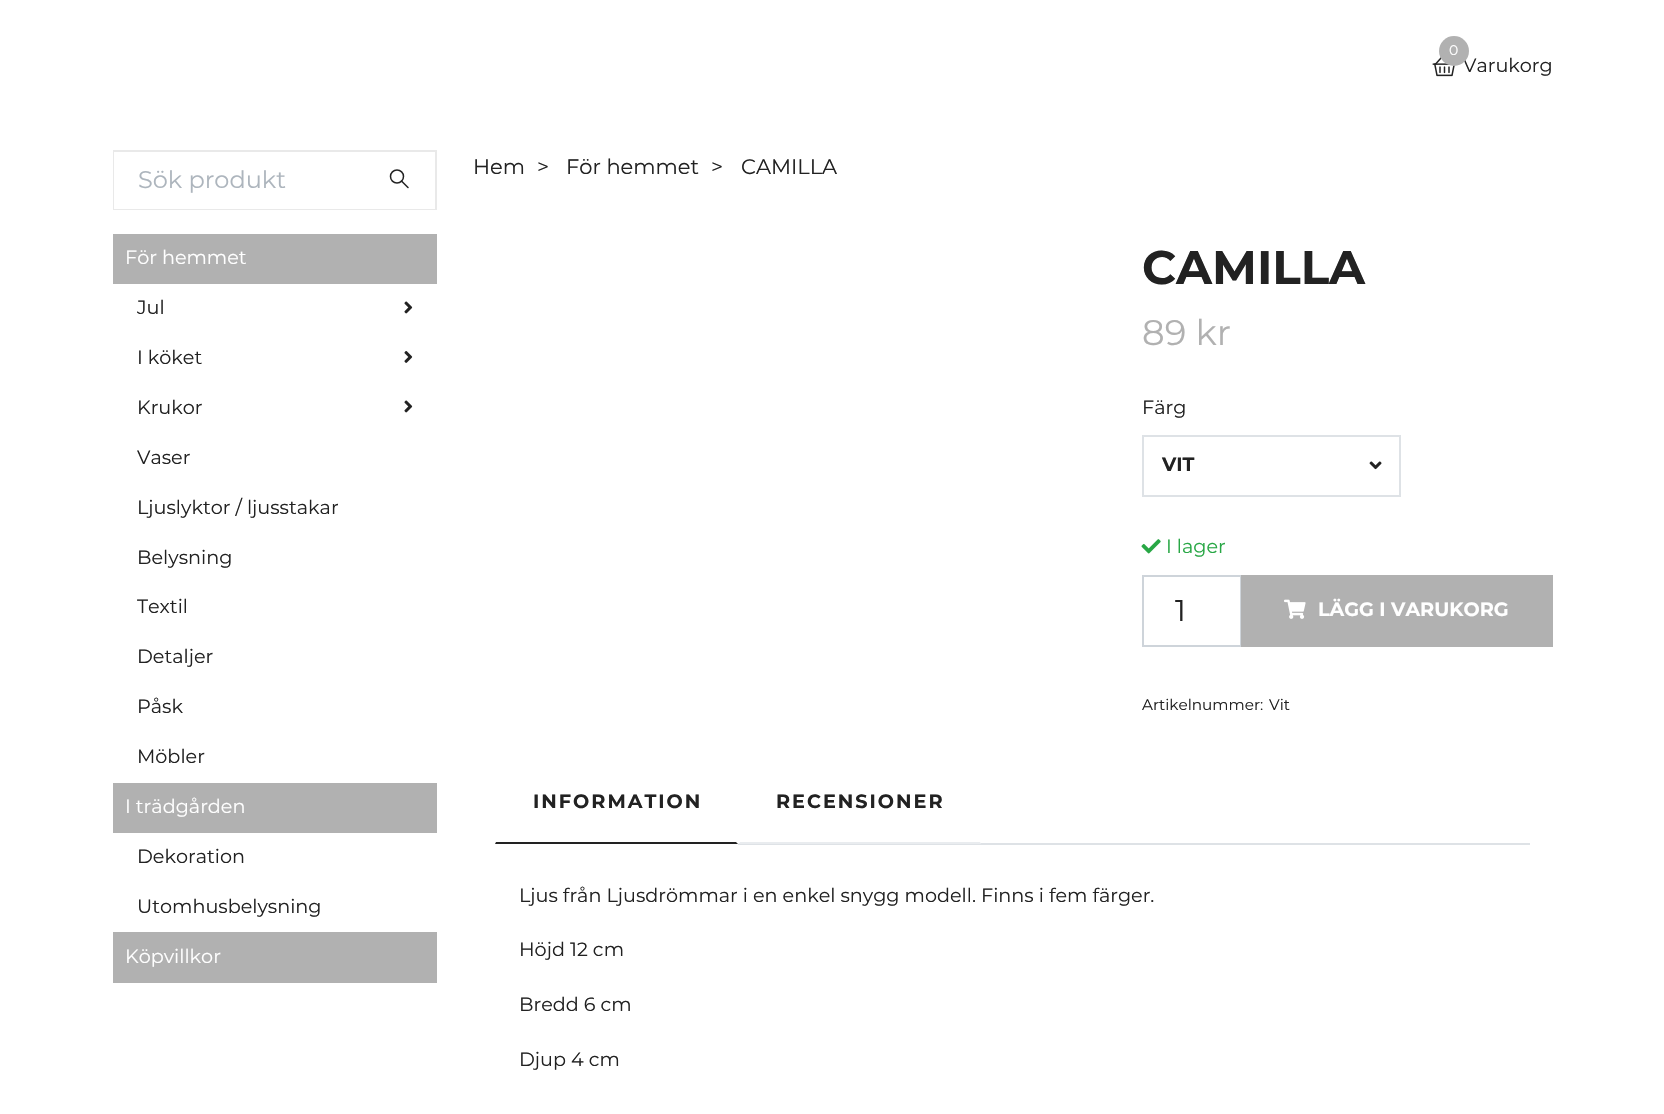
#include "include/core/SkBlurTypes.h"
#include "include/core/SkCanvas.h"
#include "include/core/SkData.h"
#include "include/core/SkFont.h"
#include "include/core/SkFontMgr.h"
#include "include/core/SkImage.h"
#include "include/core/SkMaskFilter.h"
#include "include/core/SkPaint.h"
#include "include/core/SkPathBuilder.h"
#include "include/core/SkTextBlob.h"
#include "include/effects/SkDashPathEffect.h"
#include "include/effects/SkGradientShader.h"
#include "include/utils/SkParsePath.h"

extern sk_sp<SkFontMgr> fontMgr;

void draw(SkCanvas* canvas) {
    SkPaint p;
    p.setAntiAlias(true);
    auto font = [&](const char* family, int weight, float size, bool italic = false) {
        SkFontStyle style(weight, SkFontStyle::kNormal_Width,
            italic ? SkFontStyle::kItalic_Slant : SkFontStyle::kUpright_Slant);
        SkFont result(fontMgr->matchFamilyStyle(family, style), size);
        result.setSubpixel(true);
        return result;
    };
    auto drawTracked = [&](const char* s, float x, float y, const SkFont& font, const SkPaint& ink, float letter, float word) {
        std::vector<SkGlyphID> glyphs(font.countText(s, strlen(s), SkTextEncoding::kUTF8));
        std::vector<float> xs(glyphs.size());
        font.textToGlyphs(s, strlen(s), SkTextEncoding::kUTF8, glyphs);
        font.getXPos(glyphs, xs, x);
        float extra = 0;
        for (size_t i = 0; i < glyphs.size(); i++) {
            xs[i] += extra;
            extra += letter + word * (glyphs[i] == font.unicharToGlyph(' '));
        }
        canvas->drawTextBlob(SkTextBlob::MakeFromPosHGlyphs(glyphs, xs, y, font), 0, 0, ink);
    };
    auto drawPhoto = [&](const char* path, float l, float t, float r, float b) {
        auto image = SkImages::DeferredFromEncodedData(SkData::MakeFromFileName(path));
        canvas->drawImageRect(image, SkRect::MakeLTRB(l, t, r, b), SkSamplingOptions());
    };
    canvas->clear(0xFFFFFFFF);
    drawPhoto("media/1.png", 1432, 57, 1455, 77);
    auto font1 = font("Montserrat", 400, 19.2f);
    p.setColor(0xFF222222);
    canvas->drawString("Varukorg", 1463, 72, font1, p);
    p.setColor(0xFFB1B1B1);
    canvas->drawCircle(1454, 51, 15, p);
    auto font2 = font("Montserrat", 400, 14);
    p.setColor(0xFFFFFFFF);
    canvas->drawString("0", 1449, 55, font2, p);
    p.setStyle(SkPaint::kStroke_Style);
    p.setStrokeWidth(2);
    p.setColor(0xFFE9E9E9);
    canvas->drawRect(SkRect::MakeLTRB(114, 151, 436, 209), p);
    p.setStyle(SkPaint::kFill_Style);
    p.setColor(0xFFFFFFFF);
    canvas->drawRect(SkRect::MakeLTRB(114, 152, 363, 209), p);
    auto font3 = font("Montserrat", 400, 24);
    p.setColor(0xFFADB5BD);
    canvas->drawString("Sök produkt", 138, 188, font3, p);
    p.setColor(0xFFFFFFFF);
    canvas->drawRect(SkRect::MakeLTRB(363, 208, 435, 209), p);
    p.setStyle(SkPaint::kStroke_Style);
    p.setStrokeWidth(1.5f);
    p.setStrokeCap(SkPaint::kRound_Cap);
    p.setStrokeJoin(SkPaint::kRound_Join);
    p.setColor(0xFF222222);
    canvas->drawPath(SkPathBuilder().moveTo(401.5f, 181).lineTo(408, 187.5f).detach(), p);
    p.setStrokeCap(SkPaint::kButt_Cap);
    p.setStrokeJoin(SkPaint::kMiter_Join);
    canvas->drawCircle(397, 176.5f, 6.5f, p);
    p.setStyle(SkPaint::kFill_Style);
    p.setColor(0xFFB1B1B1);
    canvas->drawRect(SkRect::MakeLTRB(113, 234, 437, 284), p);
    p.setColor(0xFFFFFFFF);
    canvas->drawString("För hemmet", 125, 264, font1, p);
    p.setColor(0xFF222222);
    canvas->drawString("Jul", 137, 314, font1, p);
    drawPhoto("media/2.png", 404, 301, 413, 314);
    canvas->drawString("I köket", 137, 364, font1, p);
    drawPhoto("media/3.png", 404, 351, 413, 363);
    canvas->drawString("Krukor", 137, 414, font1, p);
    drawPhoto("media/2.png", 404, 400, 413, 413);
    {
        const struct { const char* s; float x, y; } items[] = {
            {"Vaser", 137, 464},
            {"Ljuslyktor / ljusstakar", 137, 514},
            {"Belysning", 137, 564},
            {"Textil", 137, 613},
            {"Detaljer", 137, 663},
            {"Påsk", 137, 713},
            {"Möbler", 137, 763},
        };
        for (auto [s, x, y] : items) {
            canvas->drawString(s, x, y, font1, p);
        }
    }
    p.setColor(0xFFB1B1B1);
    canvas->drawRect(SkRect::MakeLTRB(113, 783, 437, 833), p);
    p.setColor(0xFFFFFFFF);
    canvas->drawString("I trädgården", 125, 813, font1, p);
    p.setColor(0xFF222222);
    canvas->drawString("Dekoration", 137, 863, font1, p);
    canvas->drawString("Utomhusbelysning", 137, 913, font1, p);
    p.setColor(0xFFB1B1B1);
    canvas->drawRect(SkRect::MakeLTRB(113, 932, 437, 983), p);
    p.setColor(0xFFFFFFFF);
    canvas->drawString("Köpvillkor", 125, 963, font1, p);
    auto font4 = font("Montserrat", 400, 21);
    p.setColor(0xFF222222);
    {
        const struct { const char* s; float x, y; } items[] = {
            {"Hem", 473, 174},
            {">", 537, 174},
            {"För hemmet", 566, 174},
            {">", 711, 174},
            {"CAMILLA", 741, 174},
        };
        for (auto [s, x, y] : items) {
            canvas->drawString(s, x, y, font4, p);
        }
    }
    auto font5 = font("Montserrat", 700, 47);
    canvas->drawString("CAMILLA", 1142, 284, font5, p);
    auto font6 = font("Montserrat", 400, 35.5f);
    p.setColor(0xFFB1B1B1);
    canvas->drawString("89 kr", 1142, 345, font6, p);
    p.setColor(0xFF222222);
    canvas->drawString("Färg", 1142, 414, font1, p);
    p.setStyle(SkPaint::kStroke_Style);
    p.setStrokeWidth(2);
    p.setColor(0xFFDEE2E6);
    canvas->drawRect(SkRect::MakeLTRB(1143, 436, 1400, 496), p);
    auto font7 = font("Montserrat", 700, 19.2f);
    p.setStyle(SkPaint::kFill_Style);
    p.setColor(0xFF222222);
    canvas->drawString("VIT", 1162, 471, font7, p);
    drawPhoto("media/4.png", 1369, 461, 1382, 470);
    drawPhoto("media/5.png", 1141, 539, 1161, 554);
    p.setColor(0xFF28A745);
    canvas->drawString("I lager", 1166, 553, font1, p);
    p.setStyle(SkPaint::kStroke_Style);
    p.setColor(0xFFCED4DA);
    canvas->drawRect(SkRect::MakeLTRB(1143, 576, 1241, 646), p);
    auto font8 = font("Montserrat", 400, 30);
    p.setStyle(SkPaint::kFill_Style);
    p.setColor(0xFF222222);
    canvas->drawString("1", 1175, 621, font8, p);
    p.setColor(0xFFB1B1B1);
    canvas->drawRect(SkRect::MakeLTRB(1241, 575, 1553, 647), p);
    drawPhoto("media/6.png", 1284, 599, 1306, 619);
    p.setColor(0xFFFFFFFF);
    canvas->drawString("LÄGG I VARUKORG", 1318, 616, font7, p);
    auto font9 = font("Montserrat", 400, 15.25f);
    p.setColor(0xFF222222);
    canvas->drawString("Artikelnummer:", 1142, 710, font9, p);
    canvas->drawString("Vit", 1269, 710, font9, p);
    p.setColor(0xFFDEE2E6);
    canvas->drawRect(SkRect::MakeLTRB(738, 843, 1530, 845), p);
    p.setColor(0xFF222222);
    canvas->drawPath(SkPathBuilder().moveTo(738, 844).lineTo(495, 844).lineTo(496, 842).lineTo(736, 842).close().detach(), p);
    drawTracked("INFORMATION", 533, 808, font7, p, 2, 0);
    p.setColor(0xFFFFFFFF);
    canvas->drawPath(SkPathBuilder().moveTo(981, 762).lineTo(981, 844).lineTo(980, 842).lineTo(980, 764).close().detach(), p);
    p.setColor(0xFFE9ECEF);
    canvas->drawPath(SkPathBuilder().moveTo(981, 844).lineTo(738, 844).lineTo(740, 842).lineTo(980, 842).close().detach(), p);
    p.setColor(0xFFFFFFFF);
    canvas->drawPath(SkPathBuilder().moveTo(738, 844).lineTo(738, 762).lineTo(740, 764).lineTo(740, 842).close().detach(), p);
    p.setColor(0xFF222222);
    drawTracked("RECENSIONER", 776, 808, font7, p, 2, 0);
    {
        const struct { const char* s; float x, y; } items[] = {
            {"Ljus från Ljusdrömmar i en enkel snygg modell. Finns i fem färger.", 519, 902},
            {"Höjd 12 cm", 519, 956},
            {"Bredd 6 cm", 519, 1011},
            {"Djup 4 cm", 519, 1066},
        };
        for (auto [s, x, y] : items) {
            canvas->drawString(s, x, y, font1, p);
        }
    }
}
